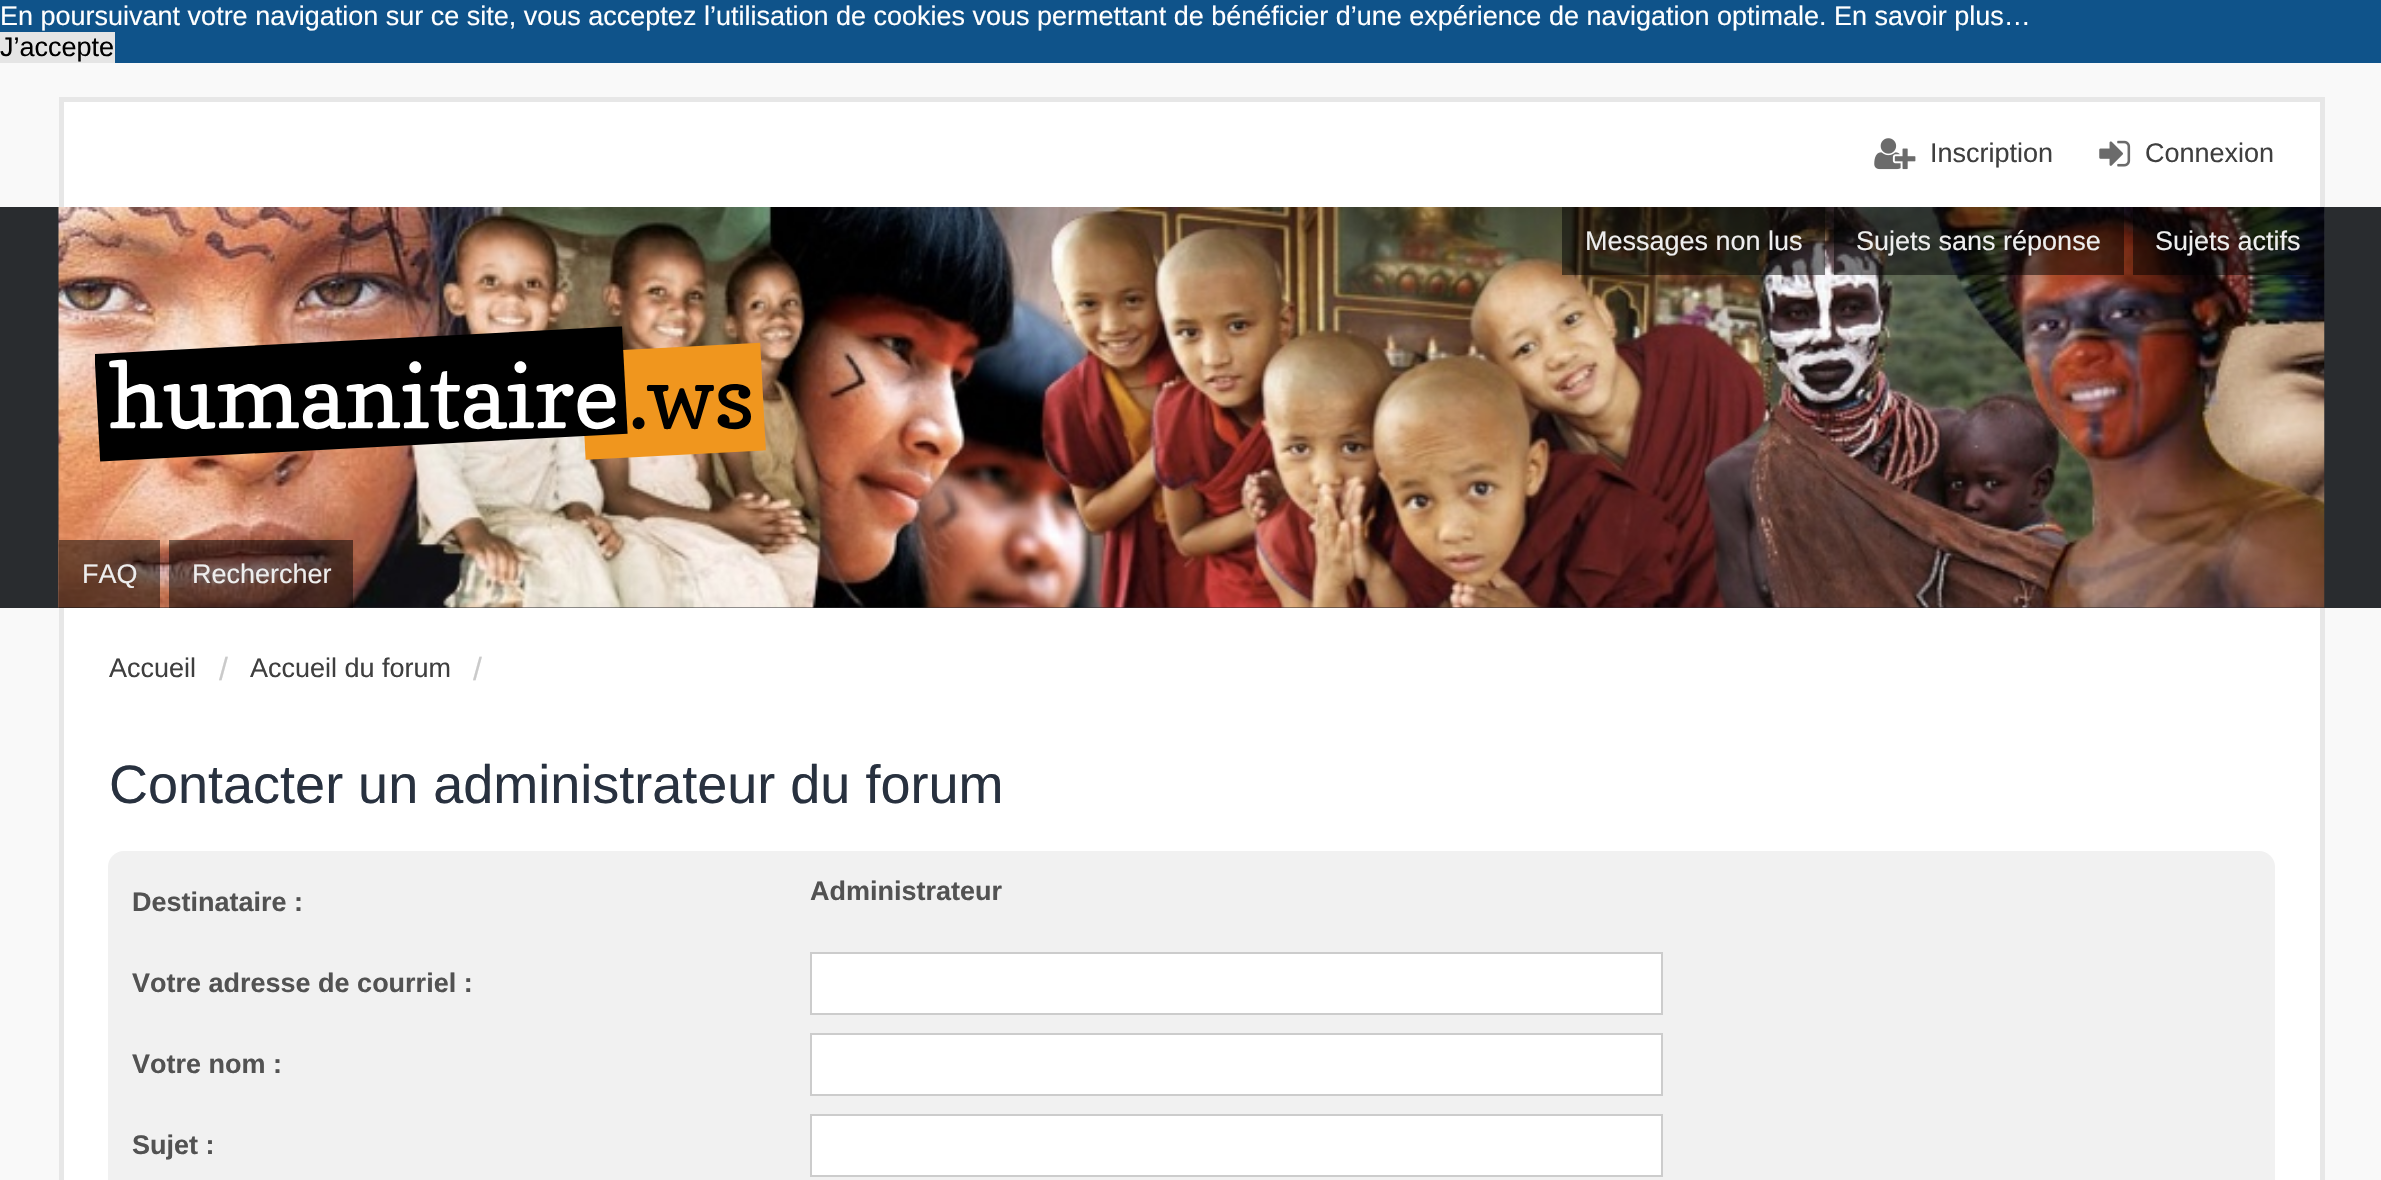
#include "include/core/SkBlurTypes.h"
#include "include/core/SkCanvas.h"
#include "include/core/SkData.h"
#include "include/core/SkFont.h"
#include "include/core/SkFontMgr.h"
#include "include/core/SkImage.h"
#include "include/core/SkMaskFilter.h"
#include "include/core/SkPaint.h"
#include "include/core/SkPathBuilder.h"
#include "include/core/SkTextBlob.h"
#include "include/effects/SkDashPathEffect.h"
#include "include/effects/SkGradientShader.h"
#include "include/utils/SkParsePath.h"

extern sk_sp<SkFontMgr> fontMgr;

void draw(SkCanvas* canvas) {
    SkPaint p;
    p.setAntiAlias(true);
    auto font = [&](const char* family, int weight, float size, bool italic = false) {
        SkFontStyle style(weight, SkFontStyle::kNormal_Width,
            italic ? SkFontStyle::kItalic_Slant : SkFontStyle::kUpright_Slant);
        SkFont result(fontMgr->matchFamilyStyle(family, style), size);
        result.setSubpixel(true);
        return result;
    };
    auto drawPhoto = [&](const char* path, float l, float t, float r, float b) {
        auto image = SkImages::DeferredFromEncodedData(SkData::MakeFromFileName(path));
        canvas->drawImageRect(image, SkRect::MakeLTRB(l, t, r, b), SkSamplingOptions());
    };
    canvas->clear(0xFFF9F9F9);
    p.setColor(0xFF0F538A);
    canvas->drawRect(SkRect::MakeLTRB(0, 0, 2381, 63), p);
    auto font1 = font("Liberation Sans", 400, 27);
    p.setColor(0xFFFFFFFF);
    canvas->drawString("En poursuivant votre navigation sur ce site, vous acceptez l’utilisation de cookies vous permettant de bénéficier d’une expérience de navigation optimale. En savoir plus…", 0, 25, font1, p);
    p.setColor(0xFFE5E5E5);
    canvas->drawRect(SkRect::MakeLTRB(0, 32, 115, 63), p);
    p.setColor(0xFF000000);
    canvas->drawString("J’accepte", 0, 56, font1, p);
    {
        const struct { float l, t, r, b; SkColor color; } items[] = {
            {64, 102, 2320, 207, 0xFFFFFFFF},
            {59, 97, 2324, 102, 0xFFE7E7E7},
            {2320, 97, 2325, 207, 0xFFE7E7E7},
            {59, 97, 64, 207, 0xFFE7E7E7},
        };
        for (auto [l, t, r, b, color] : items) {
            p.setColor(color);
            canvas->drawRect(SkRect::MakeLTRB(l, t, r, b), p);
        }
    }
    drawPhoto("media/1.png", 1874, 138, 1916, 170);
    p.setColor(0xFF3F3F3F);
    canvas->drawString("Inscription", 1930, 162, font1, p);
    drawPhoto("media/2.png", 2099, 140, 2131, 167);
    canvas->drawString("Connexion", 2145, 162, font1, p);
    p.setColor(0xFF292C2F);
    canvas->drawRect(SkRect::MakeLTRB(0, 207, 2381, 608), p);
    drawPhoto("media/3.png", 58, 207, 2325, 608);
    p.setColor(0x80000000);
    canvas->drawRect(SkRect::MakeLTRB(1562, 207, 1825, 275), p);
    p.setColor(0xFFEEEEEE);
    canvas->drawString("Messages non lus", 1585, 250, font1, p);
    p.setColor(0x80000000);
    canvas->drawRect(SkRect::MakeLTRB(1834, 207, 2124, 275), p);
    p.setColor(0xFFEEEEEE);
    canvas->drawString("Sujets sans réponse", 1856, 250, font1, p);
    p.setColor(0x80000000);
    canvas->drawRect(SkRect::MakeLTRB(2133, 207, 2324, 275), p);
    p.setColor(0xFFEEEEEE);
    canvas->drawString("Sujets actifs", 2155, 250, font1, p);
    p.setColor(0x80000000);
    canvas->drawRect(SkRect::MakeLTRB(59, 540, 160, 608), p);
    p.setColor(0xFFEEEEEE);
    canvas->drawString("FAQ", 82, 583, font1, p);
    p.setColor(0x80000000);
    canvas->drawRect(SkRect::MakeLTRB(169, 540, 353, 608), p);
    p.setColor(0xFFEEEEEE);
    canvas->drawString("Rechercher", 192, 583, font1, p);
    drawPhoto("media/4.png", 95, 326, 766, 462);
    {
        const struct { float l, t, r, b; SkColor color; } items[] = {
            {64, 608, 2320, 1180, 0xFFFFFFFF},
            {2320, 608, 2325, 1180, 0xFFE7E7E7},
            {59, 608, 64, 1180, 0xFFE7E7E7},
        };
        for (auto [l, t, r, b, color] : items) {
            p.setColor(color);
            canvas->drawRect(SkRect::MakeLTRB(l, t, r, b), p);
        }
    }
    p.setColor(0xFF3F3F3F);
    canvas->drawString("Accueil", 109, 677, font1, p);
    auto font2 = font("Liberation Sans", 400, 32);
    p.setColor(0xFFCACACA);
    canvas->drawString("/", 219, 680, font2, p);
    p.setColor(0xFF3F3F3F);
    canvas->drawString("Accueil du forum", 250, 677, font1, p);
    p.setColor(0xFFCACACA);
    canvas->drawString("/", 473, 680, font2, p);
    auto font3 = font("Liberation Sans", 400, 54);
    p.setColor(0xFF28313F);
    canvas->drawString("Contacter un administrateur du forum", 109, 803, font3, p);
    p.setColor(0xFFF1F1F1);
    canvas->drawRoundRect(SkRect::MakeLTRB(108, 851, 2275, 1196), 16, 16, p);
    auto font4 = font("Liberation Sans", 700, 27);
    p.setColor(0xFF525252);
    {
        const struct { const char* s; float x, y; } items[] = {
            {"Destinataire :", 132, 911},
            {"Administrateur", 810, 900},
            {"Votre adresse de courriel :", 132, 992},
        };
        for (auto [s, x, y] : items) {
            canvas->drawString(s, x, y, font4, p);
        }
    }
    p.setColor(0xFFFFFFFF);
    canvas->drawRect(SkRect::MakeLTRB(811, 953, 1662, 1014), p);
    p.setStyle(SkPaint::kStroke_Style);
    p.setStrokeWidth(2);
    p.setColor(0xFFCCCCCC);
    canvas->drawRect(SkRect::MakeLTRB(811, 953, 1662, 1014), p);
    p.setStyle(SkPaint::kFill_Style);
    p.setColor(0xFF525252);
    canvas->drawString("Votre nom :", 132, 1073, font4, p);
    p.setColor(0xFFFFFFFF);
    canvas->drawRect(SkRect::MakeLTRB(811, 1034, 1662, 1095), p);
    p.setStyle(SkPaint::kStroke_Style);
    p.setColor(0xFFCCCCCC);
    canvas->drawRect(SkRect::MakeLTRB(811, 1034, 1662, 1095), p);
    p.setStyle(SkPaint::kFill_Style);
    p.setColor(0xFF525252);
    canvas->drawString("Sujet :", 132, 1154, font4, p);
    p.setColor(0xFFFFFFFF);
    canvas->drawRect(SkRect::MakeLTRB(811, 1115, 1662, 1176), p);
    p.setStyle(SkPaint::kStroke_Style);
    p.setColor(0xFFCCCCCC);
    canvas->drawRect(SkRect::MakeLTRB(811, 1115, 1662, 1176), p);
}
